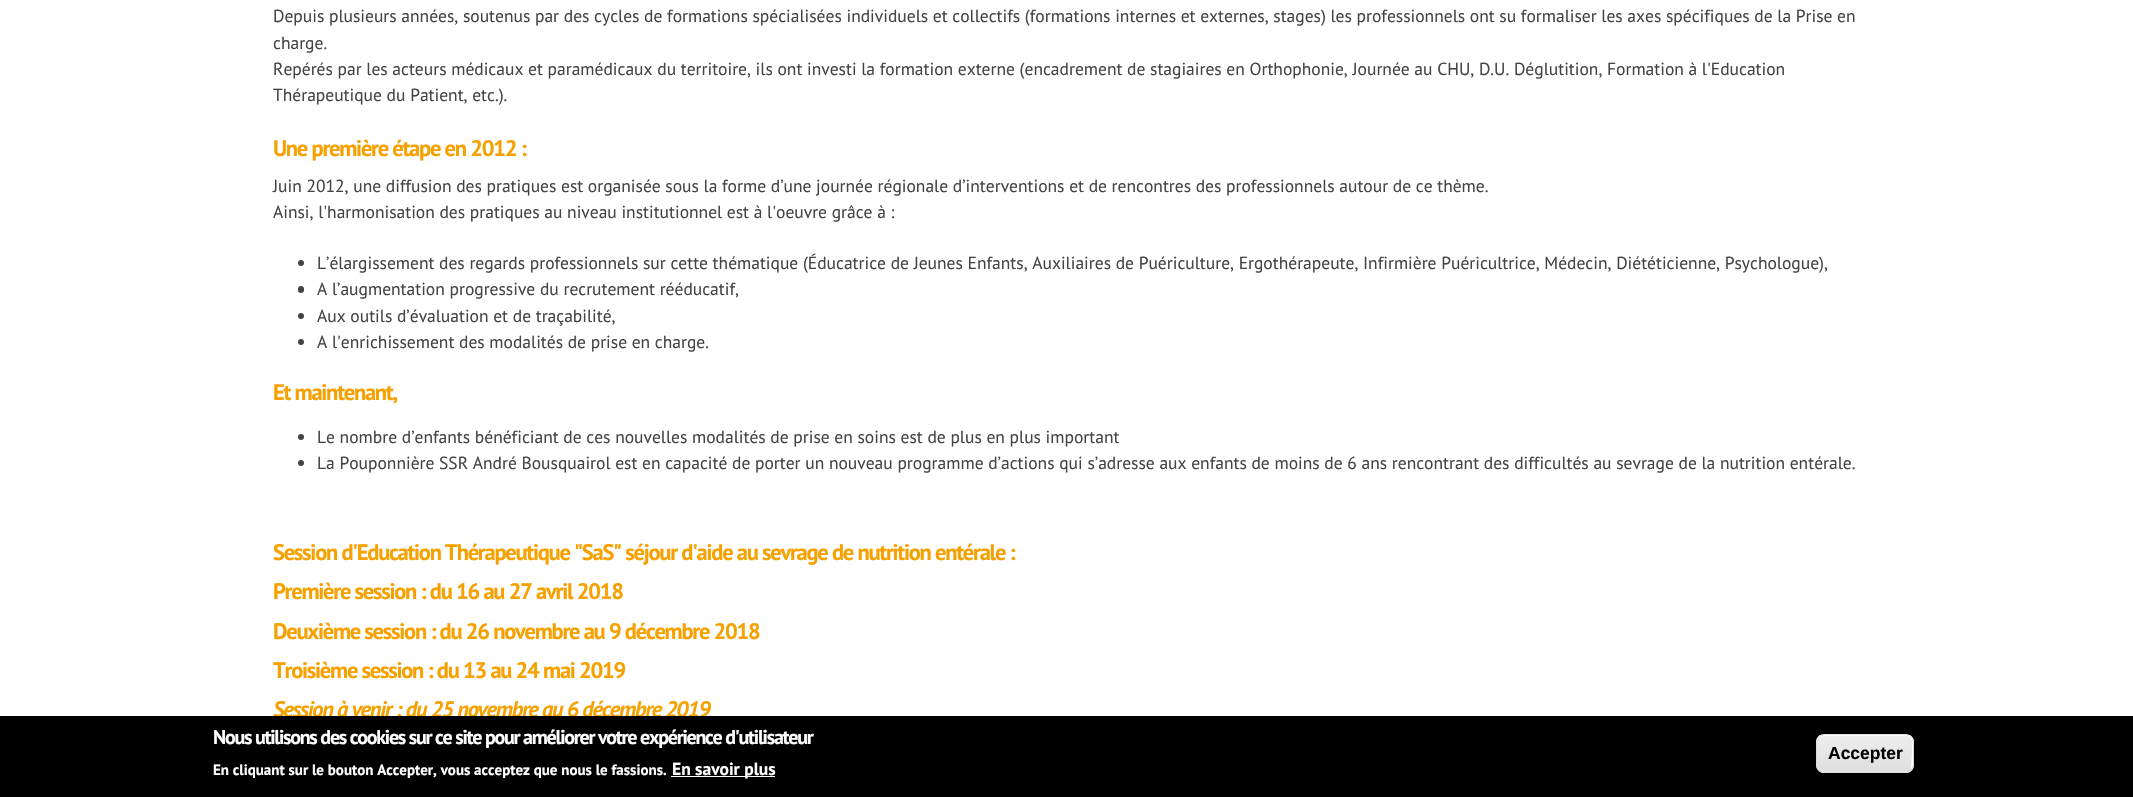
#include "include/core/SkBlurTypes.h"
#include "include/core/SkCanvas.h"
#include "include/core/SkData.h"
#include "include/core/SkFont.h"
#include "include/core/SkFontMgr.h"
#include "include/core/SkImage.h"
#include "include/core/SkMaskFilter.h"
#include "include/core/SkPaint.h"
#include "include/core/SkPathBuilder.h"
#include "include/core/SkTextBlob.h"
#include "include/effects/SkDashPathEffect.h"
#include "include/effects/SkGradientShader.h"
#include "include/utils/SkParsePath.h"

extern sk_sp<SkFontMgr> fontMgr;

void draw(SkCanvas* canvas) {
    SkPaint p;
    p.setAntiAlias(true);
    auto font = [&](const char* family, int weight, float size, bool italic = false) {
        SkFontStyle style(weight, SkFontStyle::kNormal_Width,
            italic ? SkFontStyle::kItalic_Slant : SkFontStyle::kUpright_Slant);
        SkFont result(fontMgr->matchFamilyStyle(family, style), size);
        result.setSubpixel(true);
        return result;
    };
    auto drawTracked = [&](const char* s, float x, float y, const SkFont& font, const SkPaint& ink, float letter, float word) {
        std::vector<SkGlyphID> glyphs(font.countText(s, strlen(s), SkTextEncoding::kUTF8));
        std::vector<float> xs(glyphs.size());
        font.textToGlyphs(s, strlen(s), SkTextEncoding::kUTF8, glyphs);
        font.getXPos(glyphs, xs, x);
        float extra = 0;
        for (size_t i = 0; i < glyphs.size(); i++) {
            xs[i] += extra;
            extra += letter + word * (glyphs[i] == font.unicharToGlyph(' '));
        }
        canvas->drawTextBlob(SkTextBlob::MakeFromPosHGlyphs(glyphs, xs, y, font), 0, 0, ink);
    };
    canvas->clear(0xFFFFFFFF);
    auto font1 = font("PT Sans", 400, 17.5f);
    p.setColor(0xFF444444);
    {
        const struct { const char* s; float x, y; } items[] = {
            {"Depuis plusieurs années, soutenus par des cycles de formations spécialisées individuels et collectifs (formations internes et externes, stages) les professionnels ont su formaliser les axes spécifiques de la Prise en", 273, 22},
            {"charge.", 273, 49},
            {"Repérés par les acteurs médicaux et paramédicaux du territoire, ils ont investi la formation externe (encadrement de stagiaires en Orthophonie, Journée au CHU, D.U. Déglutition, Formation à l'Education", 273, 75},
            {"Thérapeutique du Patient, etc.).", 273, 101},
        };
        for (auto [s, x, y] : items) {
            canvas->drawString(s, x, y, font1, p);
        }
    }
    auto font2 = font("PT Sans", 700, 22.5f);
    p.setColor(0xFFF7A100);
    drawTracked("Une première étape en 2012 :", 273, 156, font2, p, -1.25f, 0);
    p.setColor(0xFF444444);
    canvas->drawString("Juin 2012, une diffusion des pratiques est organisée sous la forme d’une journée régionale d’interventions et de rencontres des professionnels autour de ce thème.", 273, 192, font1, p);
    canvas->drawString("Ainsi, l'harmonisation des pratiques au niveau institutionnel est à l'oeuvre grâce à :", 273, 218, font1, p);
    canvas->drawCircle(301, 263, 3, p);
    canvas->drawString("L’élargissement des regards professionnels sur cette thématique (Éducatrice de Jeunes Enfants, Auxiliaires de Puériculture, Ergothérapeute, Infirmière Puéricultrice, Médecin, Diététicienne, Psychologue),", 317, 269, font1, p);
    canvas->drawRoundRect(SkRect::MakeLTRB(298, 286, 304, 293), 3, 3, p);
    canvas->drawString("A l’augmentation progressive du recrutement rééducatif,", 317, 295, font1, p);
    canvas->drawCircle(301, 316, 3, p);
    canvas->drawString("Aux outils d’évaluation et de traçabilité,", 317, 322, font1, p);
    canvas->drawCircle(301, 342, 3, p);
    canvas->drawString("A l'enrichissement des modalités de prise en charge.", 317, 348, font1, p);
    p.setColor(0xFFF7A100);
    drawTracked("Et maintenant,", 273, 400, font2, p, -1.25f, 0);
    p.setColor(0xFF444444);
    canvas->drawCircle(301, 437, 3, p);
    canvas->drawString("Le nombre d’enfants bénéficiant de ces nouvelles modalités de prise en soins est de plus en plus important", 317, 443, font1, p);
    canvas->drawCircle(301, 463, 3, p);
    canvas->drawString("La Pouponnière SSR André Bousquairol est en capacité de porter un nouveau programme d’actions qui s’adresse aux enfants de moins de 6 ans rencontrant des difficultés au sevrage de la nutrition entérale.", 317, 469, font1, p);
    p.setColor(0xFFF7A100);
    {
        const struct { const char* s; float x, y; } items[] = {
            {"Session d'Education Thérapeutique \"SaS\" séjour d'aide au sevrage de nutrition entérale :", 273, 560},
            {"Première session : du 16 au 27 avril 2018", 273, 599},
            {"Deuxième session : du 26 novembre au 9 décembre 2018", 273, 639},
            {"Troisième session : du 13 au 24 mai 2019", 273, 678},
        };
        for (auto [s, x, y] : items) {
            drawTracked(s, x, y, font2, p, -1.25f, 0);
        }
    }
    auto font3 = font("PT Sans", 700, 22.5f, true);
    drawTracked("Session à venir : du 25 novembre au 6 décembre 2019", 273, 717, font3, p, -1.25f, 0);
    p.setColor(0xFF000000);
    canvas->drawRect(SkRect::MakeLTRB(0, 716, 2133, 797), p);
    auto font4 = font("PT Sans", 700, 20);
    p.setColor(0xFFFFFFFF);
    drawTracked("Nous utilisons des cookies sur ce site pour améliorer votre expérience d'utilisateur", 213, 744, font4, p, -1.25f, 0);
    auto font5 = font("PT Sans", 700, 15);
    canvas->drawString("En cliquant sur le bouton Accepter, vous acceptez que nous le fassions.", 213, 775, font5, p);
    canvas->drawRect(SkRect::MakeLTRB(671, 776, 775, 777), p);
    auto font6 = font("PT Sans", 700, 17.5f);
    canvas->drawString("En savoir plus", 672, 775, font6, p);
    canvas->save();
    canvas->clipPath(SkPathBuilder().moveTo(1824, 734).lineTo(1906, 734).cubicTo(1910.5f, 734, 1914, 737.5f, 1914, 742).lineTo(1914, 765).cubicTo(1914, 769.5f, 1910.5f, 773, 1906, 773).lineTo(1824, 773).cubicTo(1819.5f, 773, 1816, 769.5f, 1816, 765).lineTo(1816, 742).cubicTo(1816, 737.5f, 1819.5f, 734, 1824, 734).close().detach(), true);
    {
        const SkColor colors[] = {0xFFEDEDED, 0xFFDFDFDF};
        const float stops[] = {0.05f, 1};
        const SkPoint ends[] = {{1865, 735}, {1865, 771}};
        p.setShader(SkGradientShader::MakeLinear(ends, colors, stops, 2, SkTileMode::kClamp));
        p.setAlpha(255);
    }
    canvas->drawRect(SkRect::MakeLTRB(1816, 735, 1914, 771), p);
    {
        const SkColor colors[] = {0xFFEDEDED, 0xFFDFDFDF};
        const float stops[] = {0.05f, 1};
        const SkPoint ends[] = {{1865, 771}, {1865, 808}};
        p.setShader(SkGradientShader::MakeLinear(ends, colors, stops, 2, SkTileMode::kClamp));
        p.setAlpha(255);
    }
    canvas->drawRect(SkRect::MakeLTRB(1816, 771, 1914, 773), p);
    canvas->restore();
    p.setShader(nullptr);
    p.setColor(0xFFFFFFFF);
    canvas->drawPath(SkPathBuilder().moveTo(1824, 736).lineTo(1906, 736).cubicTo(1914, 736, 1912, 745, 1912, 750).lineTo(1911, 769).cubicTo(1914, 766, 1913, 757, 1913, 753).cubicTo(1913, 748, 1916, 735, 1907, 735).lineTo(1838, 735).cubicTo(1831, 735, 1818, 732, 1818, 742).cubicTo(1818, 739, 1820, 736, 1824, 736).close().detach(), p);
    p.setStyle(SkPaint::kStroke_Style);
    p.setStrokeWidth(1);
    p.setColor(0xFFDCDCDC);
    canvas->drawRoundRect(SkRect::MakeLTRB(1816.5f, 734.5f, 1913.5f, 772.5f), 7.5f, 7.5f, p);
    auto font7 = font("Liberation Sans", 700, 17.5f);
    p.setStyle(SkPaint::kFill_Style);
    p.setColor(0xFF000000);
    canvas->drawString("Accepter", 1828, 759, font7, p);
}
